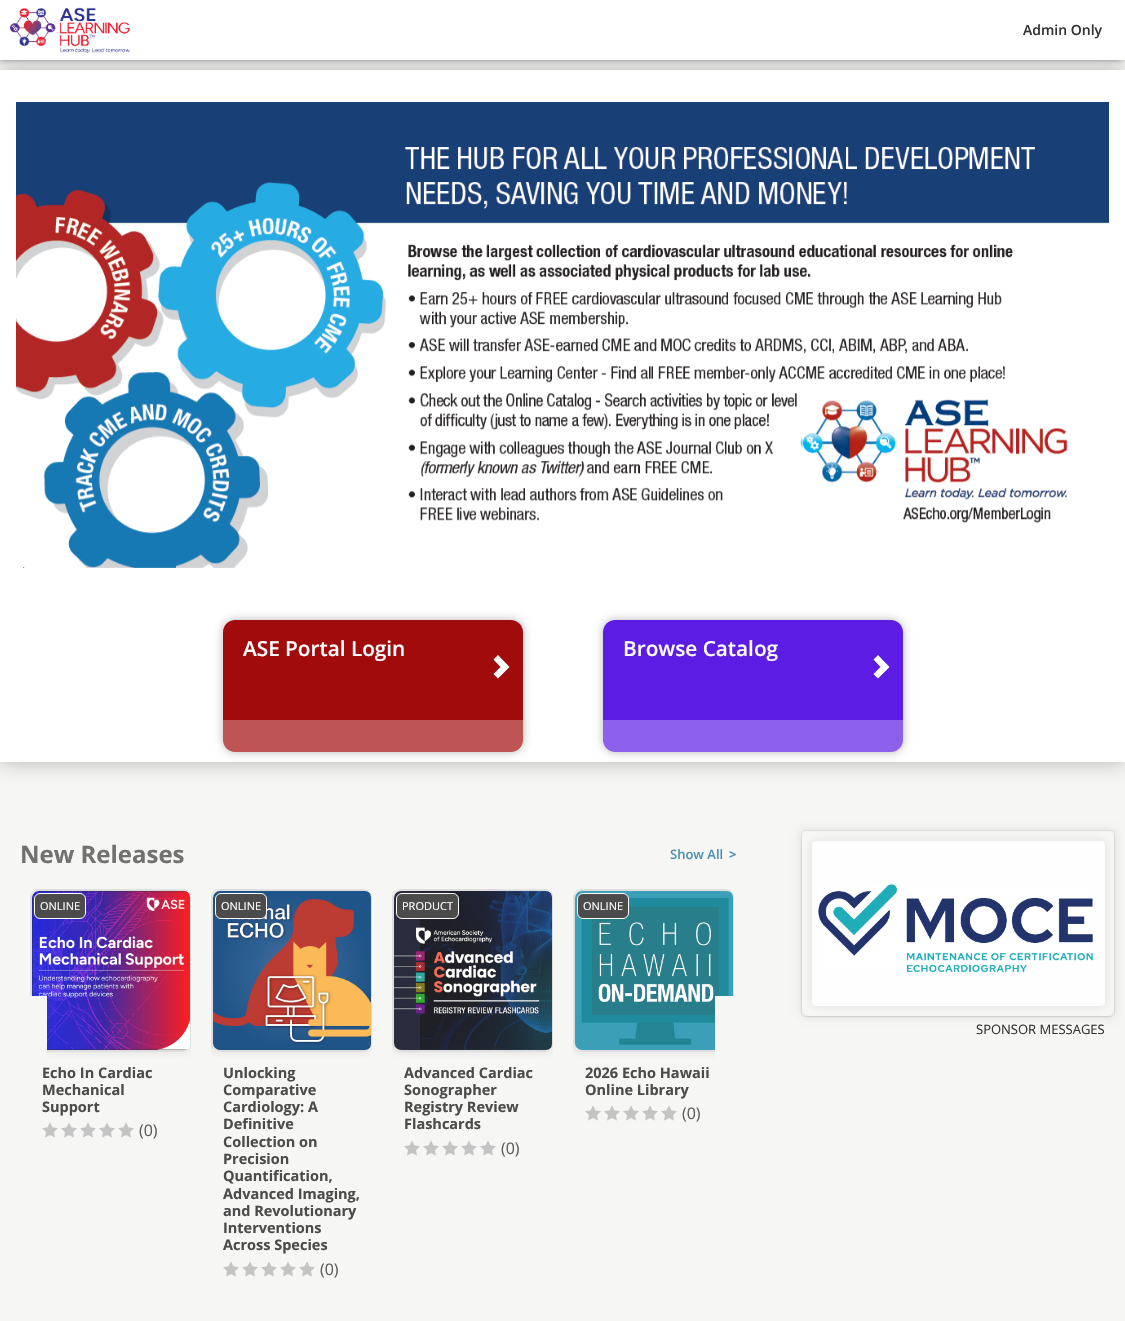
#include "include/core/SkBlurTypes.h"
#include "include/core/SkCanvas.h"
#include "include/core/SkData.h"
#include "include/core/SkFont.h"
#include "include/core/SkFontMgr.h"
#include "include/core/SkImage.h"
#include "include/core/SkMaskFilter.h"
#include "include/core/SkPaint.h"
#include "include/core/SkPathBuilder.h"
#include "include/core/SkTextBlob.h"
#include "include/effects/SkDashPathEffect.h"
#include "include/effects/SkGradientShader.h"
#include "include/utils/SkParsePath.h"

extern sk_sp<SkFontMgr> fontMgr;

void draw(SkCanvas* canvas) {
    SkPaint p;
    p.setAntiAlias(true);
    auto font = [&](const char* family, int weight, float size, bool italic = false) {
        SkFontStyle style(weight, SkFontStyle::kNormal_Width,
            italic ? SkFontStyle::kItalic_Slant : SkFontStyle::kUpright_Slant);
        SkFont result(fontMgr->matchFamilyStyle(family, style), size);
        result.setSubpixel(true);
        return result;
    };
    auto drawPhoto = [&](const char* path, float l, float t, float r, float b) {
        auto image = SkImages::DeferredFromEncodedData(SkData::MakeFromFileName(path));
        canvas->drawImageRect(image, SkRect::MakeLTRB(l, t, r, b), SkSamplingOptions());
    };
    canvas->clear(0xFFF6F6F4);
    p.setColor(0x47000000);
    p.setMaskFilter(SkMaskFilter::MakeBlur(kNormal_SkBlurStyle, 10));
    canvas->drawRect(SkRect::MakeLTRB(0, 70, 1125, 762), p);
    p.setMaskFilter(nullptr);
    p.setColor(0xFFFFFFFF);
    canvas->drawRect(SkRect::MakeLTRB(0, 70, 1125, 762), p);
    p.setColor(0xFF343434);
    p.setMaskFilter(SkMaskFilter::MakeBlur(kNormal_SkBlurStyle, 4));
    canvas->drawRect(SkRect::MakeLTRB(-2, -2, 1123, 58), p);
    p.setMaskFilter(nullptr);
    p.setColor(0xFFFFFFFF);
    canvas->drawRect(SkRect::MakeLTRB(0, 0, 1125, 60), p);
    drawPhoto("media/1.png", 10, 7, 130, 53);
    auto font1 = font("Open Sans", 600, 14);
    p.setColor(0xFF343434);
    canvas->drawString("Admin Only", 1023, 35, font1, p);
    drawPhoto("media/2.png", 16, 102, 1109, 568);
    canvas->save();
    canvas->clipPath(SkPathBuilder(SkPathFillType::kEvenOdd).moveTo(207, 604).lineTo(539, 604).lineTo(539, 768).lineTo(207, 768).close().moveTo(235, 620).lineTo(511, 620).cubicTo(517.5f, 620, 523, 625.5f, 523, 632).lineTo(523, 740).cubicTo(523, 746.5f, 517.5f, 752, 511, 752).lineTo(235, 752).cubicTo(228.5f, 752, 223, 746.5f, 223, 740).lineTo(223, 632).cubicTo(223, 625.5f, 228.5f, 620, 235, 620).close().detach(), true);
    p.setColor(0x47000000);
    p.setMaskFilter(SkMaskFilter::MakeBlur(kNormal_SkBlurStyle, 5));
    canvas->drawRoundRect(SkRect::MakeLTRB(223, 620, 523, 752), 12, 12, p);
    p.setMaskFilter(nullptr);
    canvas->restore();
    p.setColor(0xFFA20B0B);
    canvas->drawPath(SkPathBuilder().moveTo(235, 620).lineTo(511, 620).cubicTo(517.5f, 620, 523, 625.5f, 523, 632).lineTo(523, 720).lineTo(223, 720).lineTo(223, 632).cubicTo(223, 625.5f, 228.5f, 620, 235, 620).close().detach(), p);
    auto font2 = font("Open Sans", 600, 20.75f);
    p.setColor(0xFFFFFFFF);
    canvas->drawString("ASE Portal Login", 243, 656, font2, p);
    canvas->drawPath(SkPathBuilder().moveTo(498, 655).lineTo(493.5f, 659.5f).lineTo(500.5f, 667).lineTo(493.5f, 674).lineTo(498, 678.5f).lineTo(509.5f, 667).close().detach(), p);
    p.setColor(0xB3A20B0B);
    canvas->drawPath(SkPathBuilder().moveTo(223, 720).lineTo(523, 720).lineTo(523, 740).cubicTo(523, 746.5f, 517.5f, 752, 511, 752).lineTo(235, 752).cubicTo(228.5f, 752, 223, 746.5f, 223, 740).close().detach(), p);
    canvas->save();
    canvas->clipPath(SkPathBuilder(SkPathFillType::kEvenOdd).moveTo(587, 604).lineTo(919, 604).lineTo(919, 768).lineTo(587, 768).close().moveTo(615, 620).lineTo(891, 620).cubicTo(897.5f, 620, 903, 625.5f, 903, 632).lineTo(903, 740).cubicTo(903, 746.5f, 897.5f, 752, 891, 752).lineTo(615, 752).cubicTo(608.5f, 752, 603, 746.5f, 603, 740).lineTo(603, 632).cubicTo(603, 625.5f, 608.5f, 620, 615, 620).close().detach(), true);
    p.setColor(0x47000000);
    p.setMaskFilter(SkMaskFilter::MakeBlur(kNormal_SkBlurStyle, 5));
    canvas->drawRoundRect(SkRect::MakeLTRB(603, 620, 903, 752), 12, 12, p);
    p.setMaskFilter(nullptr);
    canvas->restore();
    p.setColor(0xFF5C1CE3);
    canvas->drawPath(SkPathBuilder().moveTo(615, 620).lineTo(891, 620).cubicTo(897.5f, 620, 903, 625.5f, 903, 632).lineTo(903, 720).lineTo(603, 720).lineTo(603, 632).cubicTo(603, 625.5f, 608.5f, 620, 615, 620).close().detach(), p);
    p.setColor(0xFFFFFFFF);
    canvas->drawString("Browse Catalog", 623, 656, font2, p);
    canvas->drawPath(SkPathBuilder().moveTo(878, 655).lineTo(873.5f, 659.5f).lineTo(880.5f, 667).lineTo(873.5f, 674).lineTo(878, 678.5f).lineTo(889.5f, 667).close().detach(), p);
    p.setColor(0xB35C1CE3);
    canvas->drawPath(SkPathBuilder().moveTo(603, 720).lineTo(903, 720).lineTo(903, 740).cubicTo(903, 746.5f, 897.5f, 752, 891, 752).lineTo(615, 752).cubicTo(608.5f, 752, 603, 746.5f, 603, 740).close().detach(), p);
    auto font3 = font("Open Sans", 700, 24);
    p.setColor(0xFF717170);
    canvas->drawString("New Releases", 20, 863, font3, p);
    auto font4 = font("Open Sans", 600, 13);
    p.setColor(0xFF4D93B4);
    canvas->drawString("Show All", 670, 859, font4, p);
    auto font5 = font("Open Sans", 700, 13);
    canvas->drawString(">", 729, 859, font5, p);
    canvas->save();
    canvas->clipPath(SkPathBuilder().moveTo(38, 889).lineTo(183, 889).cubicTo(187.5f, 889, 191, 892.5f, 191, 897).lineTo(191, 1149).cubicTo(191, 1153.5f, 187.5f, 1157, 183, 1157).lineTo(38, 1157).cubicTo(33.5f, 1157, 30, 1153.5f, 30, 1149).lineTo(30, 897).cubicTo(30, 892.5f, 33.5f, 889, 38, 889).close().detach(), true);
    p.setColor(0x1A1D1D1D);
    p.setMaskFilter(SkMaskFilter::MakeBlur(kNormal_SkBlurStyle, 5));
    canvas->drawRoundRect(SkRect::MakeLTRB(30, 889, 191, 1052), 8, 8, p);
    p.setMaskFilter(nullptr);
    canvas->restore();
    p.setColor(0xFFFEFEFE);
    canvas->drawRoundRect(SkRect::MakeLTRB(30.5f, 889.5f, 190.5f, 1051.5f), 7.5f, 7.5f, p);
    p.setStyle(SkPaint::kStroke_Style);
    p.setStrokeWidth(1);
    p.setColor(0xFFDEDEDE);
    canvas->drawRoundRect(SkRect::MakeLTRB(30.5f, 889.5f, 190.5f, 1051.5f), 7.5f, 7.5f, p);
    canvas->save();
    canvas->clipPath(SkPathBuilder().moveTo(38, 890).lineTo(183, 890).cubicTo(187, 890, 190, 893, 190, 897).lineTo(190, 1044).cubicTo(190, 1048, 187, 1051, 183, 1051).lineTo(38, 1051).cubicTo(34, 1051, 31, 1048, 31, 1044).lineTo(31, 897).cubicTo(31, 893, 34, 890, 38, 890).close().detach(), true);
    p.setStyle(SkPaint::kFill_Style);
    p.setColor(0xFFFEFEFE);
    canvas->drawRoundRect(SkRect::MakeLTRB(31, 890, 192, 1051), 8, 8, p);
    canvas->restore();
    p.setColor(0xFFDEDEDE);
    canvas->drawPath(SkPathBuilder().moveTo(39, 890).lineTo(183, 890).cubicTo(185, 890, 187, 891, 188, 893).cubicTo(187, 892, 186, 891, 184, 891).lineTo(39, 891).cubicTo(35, 891, 32, 894, 32, 898).lineTo(32, 1043).cubicTo(32, 1047, 35, 1050, 39, 1050).lineTo(184, 1050).cubicTo(186, 1050, 187, 1049, 188, 1048).cubicTo(187, 1050, 185, 1051, 183, 1051).lineTo(39, 1051).cubicTo(35, 1051, 31, 1047, 31, 1043).lineTo(31, 898).cubicTo(31, 894, 35, 890, 39, 890).close().detach(), p);
    drawPhoto("media/3.png", 32, 891, 190, 1050);
    p.setColor(0xFFF6F6F4);
    canvas->drawRect(SkRect::MakeLTRB(30, 996, 47, 1058), p);
    p.setColor(0xFF4B4B4B);
    canvas->drawRoundRect(SkRect::MakeLTRB(34.5f, 893.5f, 85.5f, 918.5f), 5.5f, 5.5f, p);
    p.setStyle(SkPaint::kStroke_Style);
    p.setColor(0xFFFEFEFE);
    canvas->drawRoundRect(SkRect::MakeLTRB(34.5f, 893.5f, 85.5f, 918.5f), 5.5f, 5.5f, p);
    auto font6 = font("Open Sans", 400, 11);
    p.setStyle(SkPaint::kFill_Style);
    p.setColor(0xFFFFFFFF);
    canvas->drawString("ONLINE", 40, 910, font6, p);
    auto font7 = font("Open Sans", 700, 14.5f);
    p.setColor(0xFF4B4B4B);
    {
        const struct { const char* s; float x, y; } items[] = {
            {"Echo In Cardiac", 42, 1078},
            {"Mechanical", 42, 1095},
            {"Support", 42, 1112},
        };
        for (auto [s, x, y] : items) {
            canvas->drawString(s, x, y, font7, p);
        }
    }
    drawPhoto("media/4.png", 42, 1122, 58, 1138);
    drawPhoto("media/4.png", 61, 1122, 77, 1138);
    drawPhoto("media/4.png", 80, 1122, 96, 1138);
    drawPhoto("media/4.png", 99, 1122, 115, 1138);
    drawPhoto("media/4.png", 118, 1122, 134, 1138);
    auto font8 = font("Open Sans", 400, 16);
    p.setColor(0xFF5C5C5C);
    canvas->drawString("(0)", 139, 1136, font8, p);
    canvas->save();
    canvas->clipPath(SkPathBuilder().moveTo(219, 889).lineTo(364, 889).cubicTo(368.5f, 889, 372, 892.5f, 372, 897).lineTo(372, 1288).cubicTo(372, 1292.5f, 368.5f, 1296, 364, 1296).lineTo(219, 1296).cubicTo(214.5f, 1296, 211, 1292.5f, 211, 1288).lineTo(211, 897).cubicTo(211, 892.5f, 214.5f, 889, 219, 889).close().detach(), true);
    p.setColor(0x1A1D1D1D);
    p.setMaskFilter(SkMaskFilter::MakeBlur(kNormal_SkBlurStyle, 5));
    canvas->drawRoundRect(SkRect::MakeLTRB(211, 889, 372, 1052), 8, 8, p);
    p.setMaskFilter(nullptr);
    canvas->restore();
    p.setColor(0xFFFEFEFE);
    canvas->drawRoundRect(SkRect::MakeLTRB(211.5f, 889.5f, 371.5f, 1051.5f), 7.5f, 7.5f, p);
    p.setStyle(SkPaint::kStroke_Style);
    p.setColor(0xFFDEDEDE);
    canvas->drawRoundRect(SkRect::MakeLTRB(211.5f, 889.5f, 371.5f, 1051.5f), 7.5f, 7.5f, p);
    canvas->save();
    canvas->clipPath(SkPathBuilder().moveTo(219, 890).lineTo(364, 890).cubicTo(368, 890, 371, 893, 371, 897).lineTo(371, 1044).cubicTo(371, 1048, 368, 1051, 364, 1051).lineTo(219, 1051).cubicTo(215, 1051, 212, 1048, 212, 1044).lineTo(212, 897).cubicTo(212, 893, 215, 890, 219, 890).close().detach(), true);
    p.setStyle(SkPaint::kFill_Style);
    p.setColor(0xFFFEFEFE);
    canvas->drawRoundRect(SkRect::MakeLTRB(212, 890, 373, 1051), 8, 8, p);
    canvas->restore();
    p.setColor(0xFFDEDEDE);
    canvas->drawPath(SkPathBuilder().moveTo(220, 890).lineTo(364, 890).cubicTo(366, 890, 368, 891, 369, 893).cubicTo(368, 892, 367, 891, 365, 891).lineTo(220, 891).cubicTo(216, 891, 213, 894, 213, 898).lineTo(213, 1043).cubicTo(213, 1047, 216, 1050, 220, 1050).lineTo(365, 1050).cubicTo(367, 1050, 368, 1049, 369, 1048).cubicTo(368, 1050, 366, 1051, 364, 1051).lineTo(220, 1051).cubicTo(216, 1051, 212, 1047, 212, 1043).lineTo(212, 898).cubicTo(212, 894, 216, 890, 220, 890).close().detach(), p);
    drawPhoto("media/5.png", 213, 891, 371, 1050);
    p.setColor(0xFF4B4B4B);
    canvas->drawRoundRect(SkRect::MakeLTRB(215.5f, 893.5f, 266.5f, 918.5f), 5.5f, 5.5f, p);
    p.setStyle(SkPaint::kStroke_Style);
    p.setColor(0xFFFEFEFE);
    canvas->drawRoundRect(SkRect::MakeLTRB(215.5f, 893.5f, 266.5f, 918.5f), 5.5f, 5.5f, p);
    p.setStyle(SkPaint::kFill_Style);
    p.setColor(0xFFFFFFFF);
    canvas->drawString("ONLINE", 221, 910, font6, p);
    p.setColor(0xFF4B4B4B);
    {
        const struct { const char* s; float x, y; } items[] = {
            {"Unlocking", 223, 1078},
            {"Comparative", 223, 1095},
            {"Cardiology: A", 223, 1112},
            {"Definitive", 223, 1129},
            {"Collection on", 223, 1147},
            {"Precision", 223, 1164},
            {"Quantification,", 223, 1181},
            {"Advanced Imaging,", 223, 1199},
            {"and Revolutionary", 223, 1216},
            {"Interventions", 223, 1233},
            {"Across Species", 223, 1250},
        };
        for (auto [s, x, y] : items) {
            canvas->drawString(s, x, y, font7, p);
        }
    }
    drawPhoto("media/4.png", 223, 1261, 239, 1277);
    drawPhoto("media/4.png", 242, 1261, 258, 1277);
    drawPhoto("media/4.png", 261, 1261, 277, 1277);
    drawPhoto("media/4.png", 280, 1261, 296, 1277);
    drawPhoto("media/4.png", 299, 1261, 315, 1277);
    p.setColor(0xFF5C5C5C);
    canvas->drawString("(0)", 320, 1275, font8, p);
    canvas->save();
    canvas->clipPath(SkPathBuilder().moveTo(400, 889).lineTo(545, 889).cubicTo(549.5f, 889, 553, 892.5f, 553, 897).lineTo(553, 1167).cubicTo(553, 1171.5f, 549.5f, 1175, 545, 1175).lineTo(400, 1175).cubicTo(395.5f, 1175, 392, 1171.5f, 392, 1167).lineTo(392, 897).cubicTo(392, 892.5f, 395.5f, 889, 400, 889).close().detach(), true);
    p.setColor(0x1A1D1D1D);
    p.setMaskFilter(SkMaskFilter::MakeBlur(kNormal_SkBlurStyle, 5));
    canvas->drawRoundRect(SkRect::MakeLTRB(392, 889, 553, 1052), 8, 8, p);
    p.setMaskFilter(nullptr);
    canvas->restore();
    p.setColor(0xFFFEFEFE);
    canvas->drawRoundRect(SkRect::MakeLTRB(392.5f, 889.5f, 552.5f, 1051.5f), 7.5f, 7.5f, p);
    p.setStyle(SkPaint::kStroke_Style);
    p.setColor(0xFFDEDEDE);
    canvas->drawRoundRect(SkRect::MakeLTRB(392.5f, 889.5f, 552.5f, 1051.5f), 7.5f, 7.5f, p);
    canvas->save();
    canvas->clipPath(SkPathBuilder().moveTo(400, 890).lineTo(545, 890).cubicTo(549, 890, 552, 893, 552, 897).lineTo(552, 1044).cubicTo(552, 1048, 549, 1051, 545, 1051).lineTo(400, 1051).cubicTo(396, 1051, 393, 1048, 393, 1044).lineTo(393, 897).cubicTo(393, 893, 396, 890, 400, 890).close().detach(), true);
    p.setStyle(SkPaint::kFill_Style);
    p.setColor(0xFFFEFEFE);
    canvas->drawRoundRect(SkRect::MakeLTRB(393, 890, 554, 1051), 8, 8, p);
    canvas->restore();
    p.setColor(0xFFDEDEDE);
    canvas->drawPath(SkPathBuilder().moveTo(401, 890).lineTo(545, 890).cubicTo(547, 890, 549, 891, 550, 893).cubicTo(549, 892, 548, 891, 546, 891).lineTo(401, 891).cubicTo(397, 891, 394, 894, 394, 898).lineTo(394, 1043).cubicTo(394, 1047, 397, 1050, 401, 1050).lineTo(546, 1050).cubicTo(548, 1050, 549, 1049, 550, 1048).cubicTo(549, 1050, 547, 1051, 545, 1051).lineTo(401, 1051).cubicTo(397, 1051, 393, 1047, 393, 1043).lineTo(393, 898).cubicTo(393, 894, 397, 890, 401, 890).close().detach(), p);
    drawPhoto("media/6.png", 394, 891, 552, 1050);
    p.setColor(0xFF4B4B4B);
    canvas->drawRoundRect(SkRect::MakeLTRB(396.5f, 893.5f, 458.5f, 918.5f), 5.5f, 5.5f, p);
    p.setStyle(SkPaint::kStroke_Style);
    p.setColor(0xFFFEFEFE);
    canvas->drawRoundRect(SkRect::MakeLTRB(396.5f, 893.5f, 458.5f, 918.5f), 5.5f, 5.5f, p);
    p.setStyle(SkPaint::kFill_Style);
    p.setColor(0xFFFFFFFF);
    canvas->drawString("PRODUCT", 402, 910, font6, p);
    p.setColor(0xFF4B4B4B);
    {
        const struct { const char* s; float x, y; } items[] = {
            {"Advanced Cardiac", 404, 1078},
            {"Sonographer", 404, 1095},
            {"Registry Review", 404, 1112},
            {"Flashcards", 404, 1129},
        };
        for (auto [s, x, y] : items) {
            canvas->drawString(s, x, y, font7, p);
        }
    }
    drawPhoto("media/4.png", 404, 1140, 420, 1156);
    drawPhoto("media/4.png", 423, 1140, 439, 1156);
    drawPhoto("media/4.png", 442, 1140, 458, 1156);
    drawPhoto("media/4.png", 461, 1140, 477, 1156);
    drawPhoto("media/4.png", 480, 1140, 496, 1156);
    p.setColor(0xFF5C5C5C);
    canvas->drawString("(0)", 501, 1154, font8, p);
    canvas->save();
    canvas->clipPath(SkPathBuilder().moveTo(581, 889).lineTo(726, 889).cubicTo(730.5f, 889, 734, 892.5f, 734, 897).lineTo(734, 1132).cubicTo(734, 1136.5f, 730.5f, 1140, 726, 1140).lineTo(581, 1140).cubicTo(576.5f, 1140, 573, 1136.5f, 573, 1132).lineTo(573, 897).cubicTo(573, 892.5f, 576.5f, 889, 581, 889).close().detach(), true);
    p.setColor(0x1A1D1D1D);
    p.setMaskFilter(SkMaskFilter::MakeBlur(kNormal_SkBlurStyle, 5));
    canvas->drawRoundRect(SkRect::MakeLTRB(573, 889, 734, 1052), 8, 8, p);
    p.setMaskFilter(nullptr);
    canvas->restore();
    p.setColor(0xFFFEFEFE);
    canvas->drawRoundRect(SkRect::MakeLTRB(573.5f, 889.5f, 733.5f, 1051.5f), 7.5f, 7.5f, p);
    p.setStyle(SkPaint::kStroke_Style);
    p.setColor(0xFFDEDEDE);
    canvas->drawRoundRect(SkRect::MakeLTRB(573.5f, 889.5f, 733.5f, 1051.5f), 7.5f, 7.5f, p);
    canvas->save();
    canvas->clipPath(SkPathBuilder().moveTo(581, 890).lineTo(726, 890).cubicTo(730, 890, 733, 893, 733, 897).lineTo(733, 1044).cubicTo(733, 1048, 730, 1051, 726, 1051).lineTo(581, 1051).cubicTo(577, 1051, 574, 1048, 574, 1044).lineTo(574, 897).cubicTo(574, 893, 577, 890, 581, 890).close().detach(), true);
    p.setStyle(SkPaint::kFill_Style);
    p.setColor(0xFFFEFEFE);
    canvas->drawRoundRect(SkRect::MakeLTRB(574, 890, 735, 1051), 8, 8, p);
    canvas->restore();
    p.setColor(0xFFDEDEDE);
    canvas->drawPath(SkPathBuilder().moveTo(582, 890).lineTo(726, 890).cubicTo(728, 890, 730, 891, 731, 893).cubicTo(730, 892, 729, 891, 727, 891).lineTo(582, 891).cubicTo(578, 891, 575, 894, 575, 898).lineTo(575, 1043).cubicTo(575, 1047, 578, 1050, 582, 1050).lineTo(727, 1050).cubicTo(729, 1050, 730, 1049, 731, 1048).cubicTo(730, 1050, 728, 1051, 726, 1051).lineTo(582, 1051).cubicTo(578, 1051, 574, 1047, 574, 1043).lineTo(574, 898).cubicTo(574, 894, 578, 890, 582, 890).close().detach(), p);
    drawPhoto("media/7.png", 575, 891, 733, 1050);
    p.setColor(0xFF4B4B4B);
    canvas->drawRoundRect(SkRect::MakeLTRB(577.5f, 893.5f, 628.5f, 918.5f), 5.5f, 5.5f, p);
    p.setStyle(SkPaint::kStroke_Style);
    p.setColor(0xFFFEFEFE);
    canvas->drawRoundRect(SkRect::MakeLTRB(577.5f, 893.5f, 628.5f, 918.5f), 5.5f, 5.5f, p);
    p.setStyle(SkPaint::kFill_Style);
    p.setColor(0xFFFFFFFF);
    canvas->drawString("ONLINE", 583, 910, font6, p);
    p.setColor(0xFF4B4B4B);
    canvas->drawString("2026 Echo Hawaii", 585, 1078, font7, p);
    canvas->drawString("Online Library", 585, 1095, font7, p);
    drawPhoto("media/4.png", 585, 1105, 601, 1121);
    drawPhoto("media/4.png", 604, 1105, 620, 1121);
    drawPhoto("media/4.png", 623, 1105, 639, 1121);
    drawPhoto("media/4.png", 642, 1105, 658, 1121);
    drawPhoto("media/4.png", 661, 1105, 677, 1121);
    p.setColor(0xFF5C5C5C);
    canvas->drawString("(0)", 682, 1119, font8, p);
    p.setColor(0xFFF6F6F4);
    canvas->drawRect(SkRect::MakeLTRB(715, 996, 734, 1058), p);
    canvas->save();
    canvas->clipPath(SkPathBuilder(SkPathFillType::kEvenOdd).moveTo(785, 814).lineTo(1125, 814).lineTo(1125, 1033).lineTo(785, 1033).close().moveTo(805, 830).lineTo(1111, 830).cubicTo(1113, 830, 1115, 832, 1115, 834).lineTo(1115, 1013).cubicTo(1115, 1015, 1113, 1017, 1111, 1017).lineTo(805, 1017).cubicTo(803, 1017, 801, 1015, 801, 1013).lineTo(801, 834).cubicTo(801, 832, 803, 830, 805, 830).close().detach(), true);
    p.setColor(0x17000000);
    p.setMaskFilter(SkMaskFilter::MakeBlur(kNormal_SkBlurStyle, 5));
    canvas->drawRoundRect(SkRect::MakeLTRB(801, 830, 1115, 1017), 4, 4, p);
    p.setMaskFilter(nullptr);
    canvas->restore();
    p.setStyle(SkPaint::kStroke_Style);
    p.setColor(0xFFDEDEDE);
    canvas->drawRoundRect(SkRect::MakeLTRB(801.5f, 830.5f, 1114.5f, 1016.5f), 3.5f, 3.5f, p);
    canvas->save();
    canvas->clipPath(SkPathBuilder(SkPathFillType::kEvenOdd).moveTo(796, 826).lineTo(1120, 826).lineTo(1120, 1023).lineTo(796, 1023).close().moveTo(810, 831).lineTo(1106, 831).cubicTo(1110.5f, 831, 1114, 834.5f, 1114, 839).lineTo(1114, 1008).cubicTo(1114, 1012.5f, 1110.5f, 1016, 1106, 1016).lineTo(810, 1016).cubicTo(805.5f, 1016, 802, 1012.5f, 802, 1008).lineTo(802, 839).cubicTo(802, 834.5f, 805.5f, 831, 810, 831).close().detach(), true);
    p.setStyle(SkPaint::kFill_Style);
    p.setColor(0x1A1D1D1D);
    p.setMaskFilter(SkMaskFilter::MakeBlur(kNormal_SkBlurStyle, 1.5f));
    canvas->drawRoundRect(SkRect::MakeLTRB(802, 832, 1114, 1017), 8, 8, p);
    p.setMaskFilter(nullptr);
    canvas->restore();
    p.setMaskFilter(SkMaskFilter::MakeBlur(kNormal_SkBlurStyle, 5));
    canvas->drawRoundRect(SkRect::MakeLTRB(812, 841, 1105, 1006), 4, 4, p);
    p.setMaskFilter(nullptr);
    p.setColor(0xFFFEFEFE);
    canvas->drawRoundRect(SkRect::MakeLTRB(812, 841, 1105, 1006), 4, 4, p);
    drawPhoto("media/8.png", 818, 884, 1093, 973);
    auto font9 = font("Open Sans", 400, 13);
    p.setColor(0xFF343434);
    canvas->drawString("SPONSOR MESSAGES", 976, 1034, font9, p);
}
